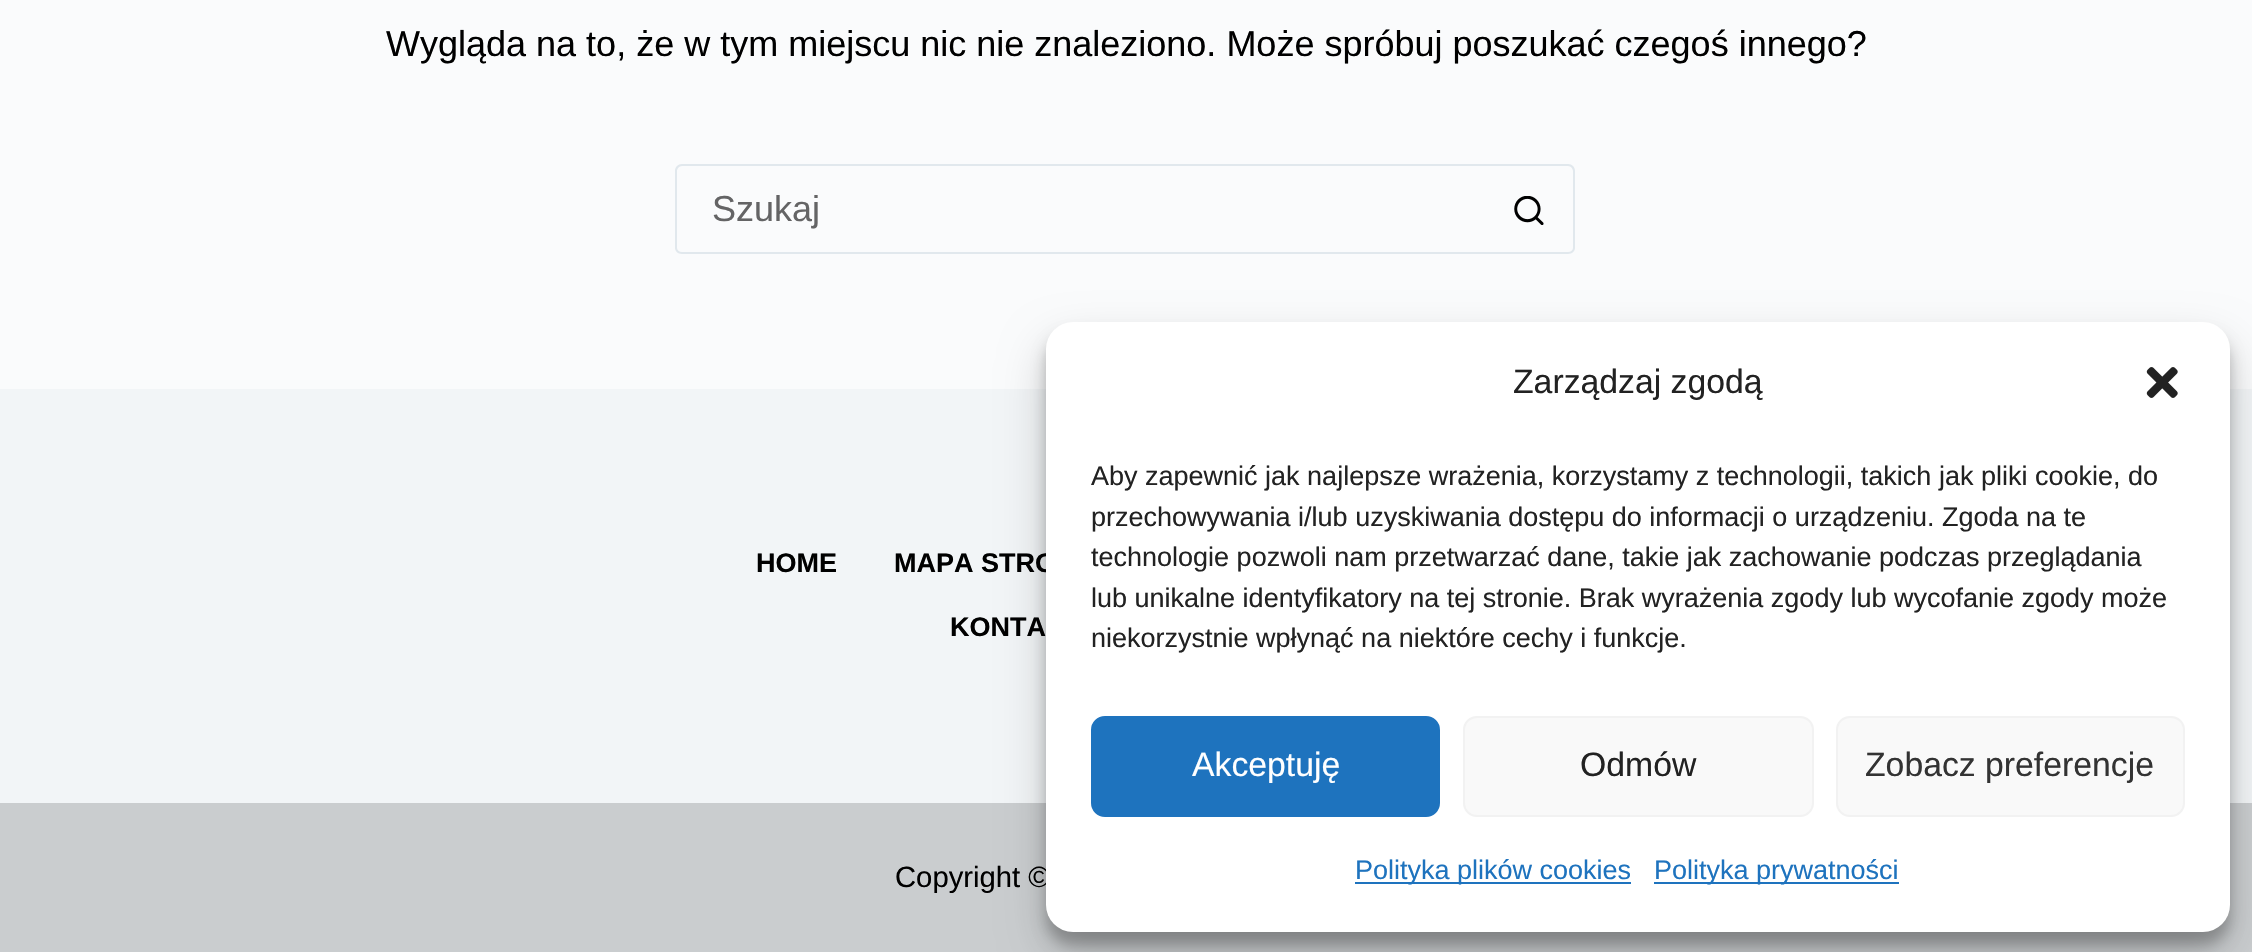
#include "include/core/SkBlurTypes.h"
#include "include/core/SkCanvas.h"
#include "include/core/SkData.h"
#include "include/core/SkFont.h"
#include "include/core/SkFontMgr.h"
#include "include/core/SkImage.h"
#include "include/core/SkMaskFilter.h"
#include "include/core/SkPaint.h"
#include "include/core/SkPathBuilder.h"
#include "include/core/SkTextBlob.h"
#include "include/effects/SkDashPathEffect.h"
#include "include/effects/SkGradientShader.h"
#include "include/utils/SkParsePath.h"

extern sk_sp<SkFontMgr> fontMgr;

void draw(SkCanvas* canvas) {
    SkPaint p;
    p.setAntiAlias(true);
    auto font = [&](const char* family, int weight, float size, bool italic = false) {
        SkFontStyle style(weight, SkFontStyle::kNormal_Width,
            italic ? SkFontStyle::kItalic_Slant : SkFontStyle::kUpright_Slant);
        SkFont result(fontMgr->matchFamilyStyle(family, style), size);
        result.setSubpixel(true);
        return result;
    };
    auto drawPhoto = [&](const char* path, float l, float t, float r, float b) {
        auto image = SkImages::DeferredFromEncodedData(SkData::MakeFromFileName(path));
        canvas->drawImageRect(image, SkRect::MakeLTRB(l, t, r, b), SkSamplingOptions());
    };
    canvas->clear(0xFFFAFBFC);
    auto font1 = font("Liberation Sans", 400, 36);
    p.setColor(0xFF000000);
    canvas->drawString("Wygląda na to, że w tym miejscu nic nie znaleziono. Może spróbuj poszukać czegoś innego?", 386, 56, font1, p);
    p.setColor(0xFFE1E8ED);
    canvas->drawPath(SkPathBuilder(SkPathFillType::kEvenOdd).moveTo(682, 164).lineTo(1485, 164).lineTo(1485, 254).lineTo(682, 254).cubicTo(678, 254, 675, 251, 675, 248).lineTo(675, 171).cubicTo(675, 167, 678, 164, 682, 164).close().moveTo(682, 166).lineTo(1485, 166).lineTo(1485, 252).lineTo(682, 252).cubicTo(679, 252, 677, 250, 677, 248).lineTo(677, 171).cubicTo(677, 169, 679, 166, 682, 166).close().detach(), p);
    p.setColor(0xFF646465);
    canvas->drawString("Szukaj", 712, 221, font1, p);
    p.setColor(0xFFE1E8ED);
    canvas->drawPath(SkPathBuilder(SkPathFillType::kEvenOdd).moveTo(1485, 164).lineTo(1568, 164).cubicTo(1572, 164, 1575, 167, 1575, 171).lineTo(1575, 248).cubicTo(1575, 251, 1572, 254, 1568, 254).lineTo(1485, 254).close().moveTo(1485, 166).lineTo(1568, 166).cubicTo(1571, 166, 1573, 169, 1573, 171).lineTo(1573, 248).cubicTo(1573, 250, 1571, 252, 1568, 252).lineTo(1485, 252).close().detach(), p);
    drawPhoto("media/1.png", 1514, 196, 1544, 225);
    p.setColor(0xFFF2F5F7);
    canvas->drawRect(SkRect::MakeLTRB(0, 389, 2252, 803), p);
    auto font2 = font("Liberation Sans", 700, 27);
    p.setColor(0xFF000000);
    {
        const struct { const char* s; float x, y; } items[] = {
            {"HOME", 756, 572},
            {"MAPA STRO", 894, 572},
            {"KONTA", 950, 636},
        };
        for (auto [s, x, y] : items) {
            canvas->drawString(s, x, y, font2, p);
        }
    }
    p.setColor(0xFFCACDCF);
    canvas->drawRect(SkRect::MakeLTRB(0, 803, 2252, 952), p);
    auto font3 = font("Liberation Sans", 400, 29.25f);
    p.setColor(0xFF000000);
    canvas->drawString("Copyright ©", 895, 887, font3, p);
    p.setColor(0x3B000000);
    p.setMaskFilter(SkMaskFilter::MakeBlur(kNormal_SkBlurStyle, 7));
    canvas->drawRoundRect(SkRect::MakeLTRB(1046, 335, 2230, 945), 27, 27, p);
    p.setMaskFilter(nullptr);
    p.setColor(0x30000000);
    p.setMaskFilter(SkMaskFilter::MakeBlur(kNormal_SkBlurStyle, 22.5f));
    canvas->drawRoundRect(SkRect::MakeLTRB(1046, 344, 2230, 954), 27, 27, p);
    p.setMaskFilter(nullptr);
    p.setColor(0xFFFFFFFF);
    canvas->drawRoundRect(SkRect::MakeLTRB(1046, 322, 2230, 932), 27, 27, p);
    auto font4 = font("Liberation Sans", 400, 33.75f);
    p.setColor(0xFF222222);
    canvas->drawString("Zarządzaj zgodą", 1513, 393, font4, p);
    drawPhoto("media/2.png", 2146, 367, 2178, 398);
    auto font5 = font("Liberation Sans", 400, 27);
    {
        const struct { const char* s; float x, y; } items[] = {
            {"Aby zapewnić jak najlepsze wrażenia, korzystamy z technologii, takich jak pliki cookie, do", 1091, 485},
            {"przechowywania i/lub uzyskiwania dostępu do informacji o urządzeniu. Zgoda na te", 1091, 526},
            {"technologie pozwoli nam przetwarzać dane, takie jak zachowanie podczas przeglądania", 1091, 566},
            {"lub unikalne identyfikatory na tej stronie. Brak wyrażenia zgody lub wycofanie zgody może", 1091, 607},
            {"niekorzystnie wpłynąć na niektóre cechy i funkcje.", 1091, 647},
        };
        for (auto [s, x, y] : items) {
            canvas->drawString(s, x, y, font5, p);
        }
    }
    p.setColor(0xFF1E73BE);
    canvas->drawRoundRect(SkRect::MakeLTRB(1092, 717, 1439, 816), 13, 13, p);
    p.setStyle(SkPaint::kStroke_Style);
    p.setStrokeWidth(2);
    canvas->drawRoundRect(SkRect::MakeLTRB(1092, 717, 1439, 816), 13, 13, p);
    p.setStyle(SkPaint::kFill_Style);
    p.setColor(0xFFFFFFFF);
    canvas->drawString("Akceptuję", 1192, 776, font4, p);
    p.setColor(0xFFF9F9F9);
    canvas->drawRoundRect(SkRect::MakeLTRB(1464, 717, 1813, 816), 13, 13, p);
    p.setStyle(SkPaint::kStroke_Style);
    p.setColor(0xFFF2F2F2);
    canvas->drawRoundRect(SkRect::MakeLTRB(1464, 717, 1813, 816), 13, 13, p);
    p.setStyle(SkPaint::kFill_Style);
    p.setColor(0xFF222222);
    canvas->drawString("Odmów", 1580, 776, font4, p);
    p.setColor(0xFFF9F9F9);
    canvas->drawRoundRect(SkRect::MakeLTRB(1837, 717, 2184, 816), 13, 13, p);
    p.setStyle(SkPaint::kStroke_Style);
    p.setColor(0xFFF2F2F2);
    canvas->drawRoundRect(SkRect::MakeLTRB(1837, 717, 2184, 816), 13, 13, p);
    p.setStyle(SkPaint::kFill_Style);
    p.setColor(0xFF333333);
    canvas->drawString("Zobacz preferencje", 1865, 776, font4, p);
    p.setColor(0xFF1E73BE);
    canvas->drawRect(SkRect::MakeLTRB(1355, 882, 1631, 884), p);
    canvas->drawString("Polityka plików cookies", 1355, 879, font5, p);
    canvas->drawRect(SkRect::MakeLTRB(1654, 882, 1899, 884), p);
    canvas->drawString("Polityka prywatności", 1654, 879, font5, p);
}
